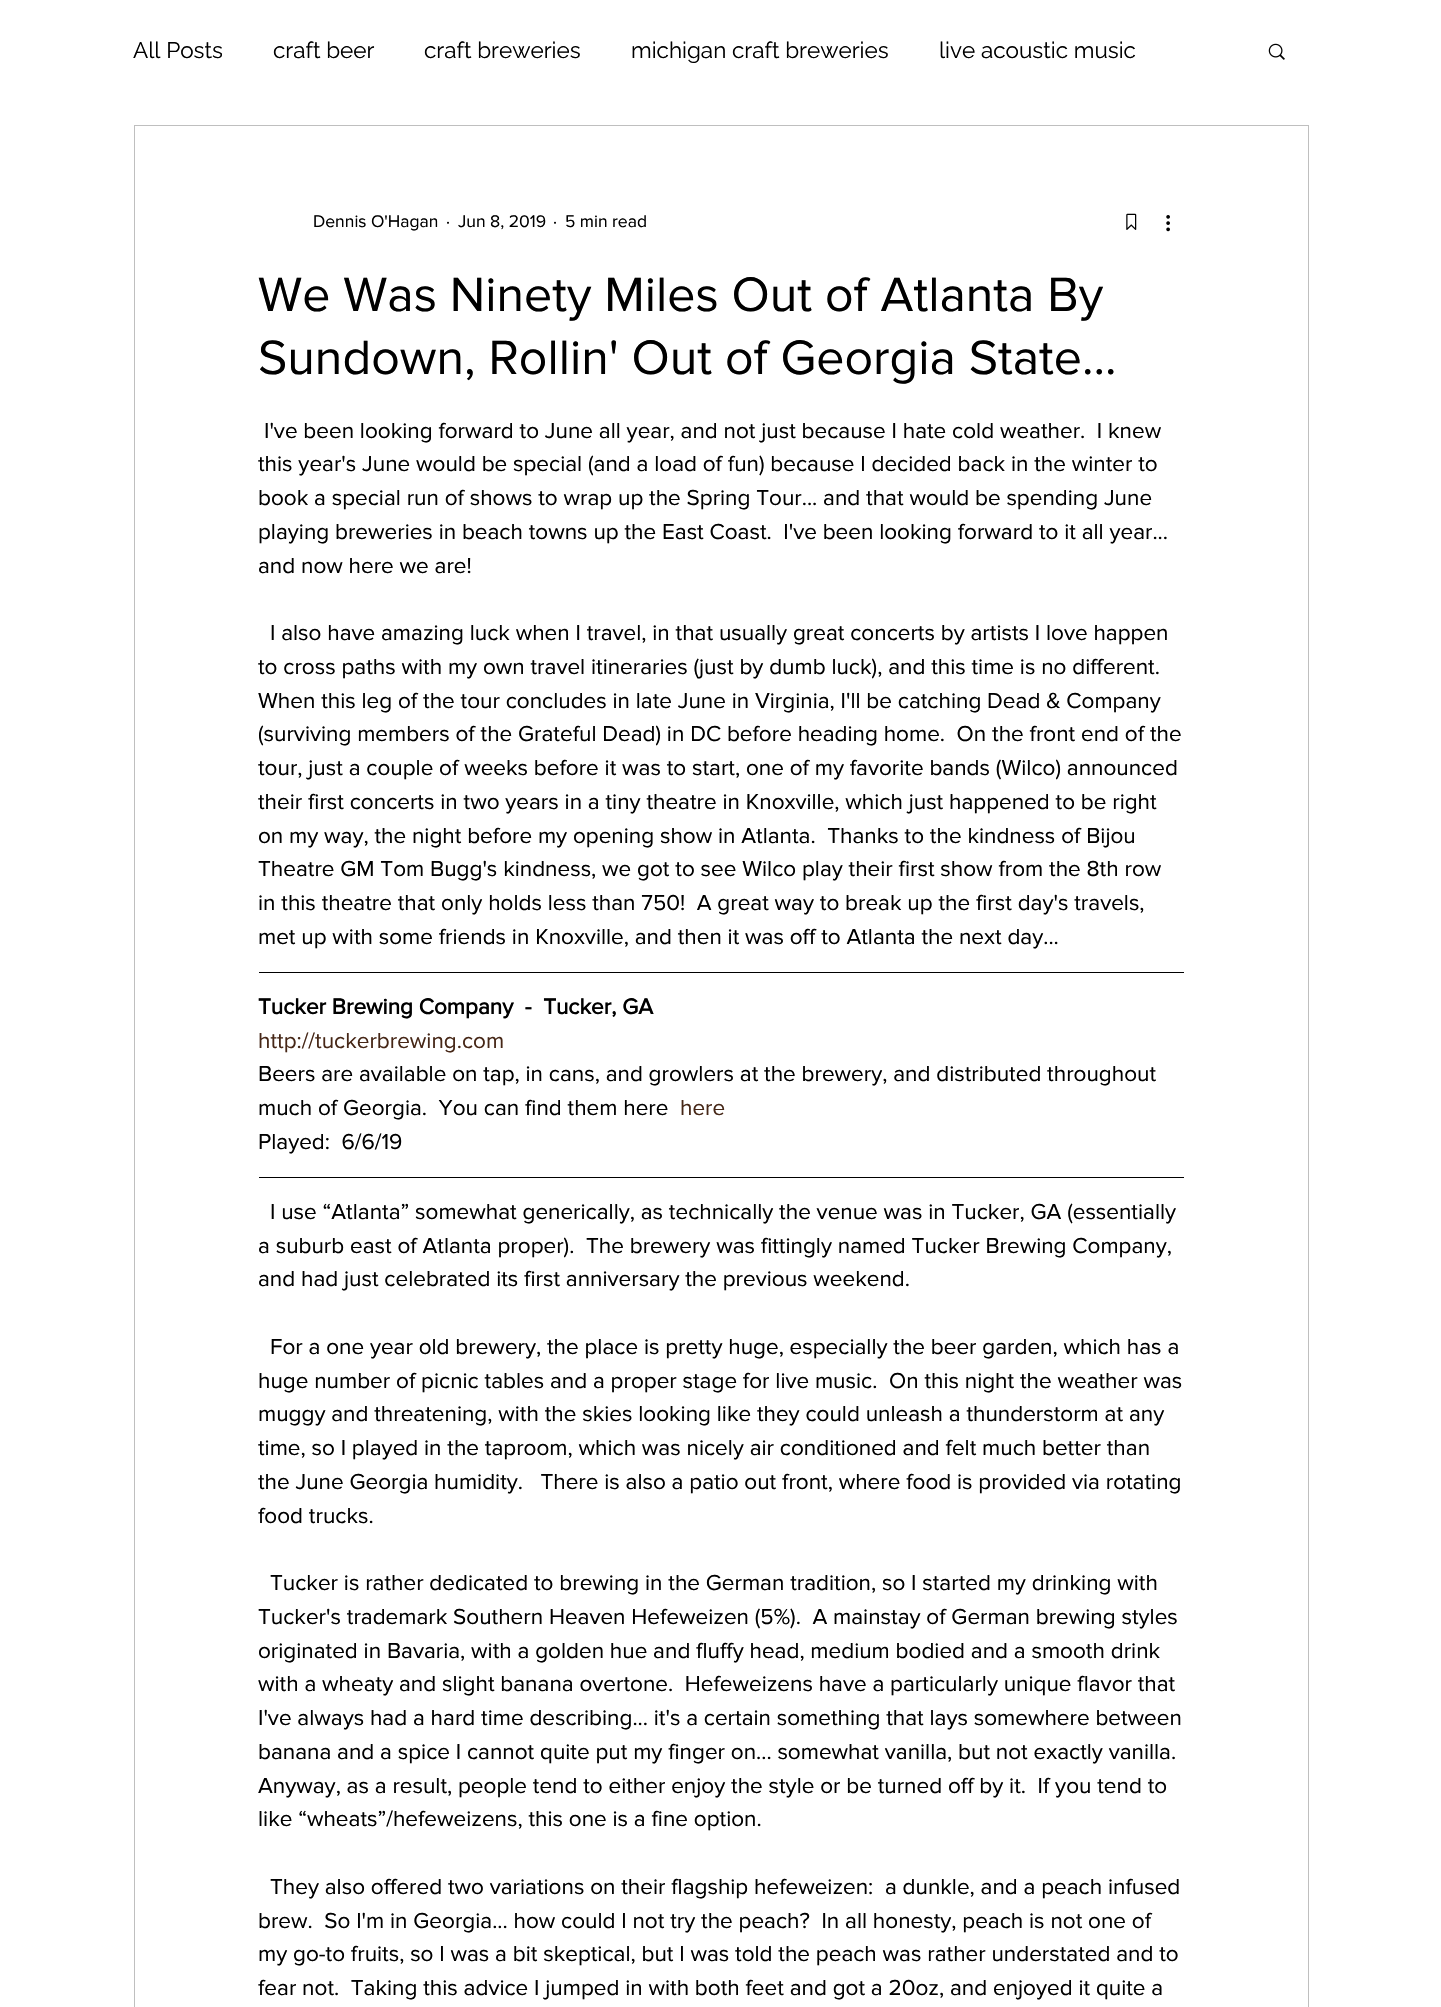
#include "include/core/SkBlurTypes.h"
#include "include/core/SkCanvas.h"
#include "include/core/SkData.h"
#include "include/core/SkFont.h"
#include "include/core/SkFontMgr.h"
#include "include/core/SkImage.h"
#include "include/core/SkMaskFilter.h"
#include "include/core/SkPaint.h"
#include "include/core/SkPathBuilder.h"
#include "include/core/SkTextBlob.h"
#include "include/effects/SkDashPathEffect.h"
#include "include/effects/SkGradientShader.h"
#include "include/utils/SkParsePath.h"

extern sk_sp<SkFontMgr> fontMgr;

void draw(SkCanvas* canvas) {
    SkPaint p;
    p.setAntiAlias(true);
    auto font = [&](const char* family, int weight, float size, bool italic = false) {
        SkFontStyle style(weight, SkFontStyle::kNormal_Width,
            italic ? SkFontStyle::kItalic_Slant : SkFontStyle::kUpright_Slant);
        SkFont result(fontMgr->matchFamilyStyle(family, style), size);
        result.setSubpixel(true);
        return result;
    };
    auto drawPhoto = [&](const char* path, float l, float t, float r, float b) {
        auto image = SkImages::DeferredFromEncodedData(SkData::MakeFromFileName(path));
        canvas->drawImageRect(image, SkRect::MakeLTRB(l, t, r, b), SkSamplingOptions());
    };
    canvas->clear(0xFFFFFFFF);
    auto font1 = font("Raleway", 400, 22.5f);
    p.setColor(0xFF000000);
    {
        const struct { const char* s; float x, y; } items[] = {
            {"All Posts", 133, 58},
            {"craft beer", 273, 58},
            {"craft breweries", 424, 58},
            {"michigan craft breweries", 631, 58},
            {"live acoustic music", 939, 58},
        };
        for (auto [s, x, y] : items) {
            canvas->drawString(s, x, y, font1, p);
        }
    }
    drawPhoto("media/1.png", 1268, 43, 1285, 60);
    p.setStyle(SkPaint::kStroke_Style);
    p.setStrokeWidth(1);
    p.setColor(0xFFBFBFBF);
    canvas->drawRect(SkRect::MakeLTRB(134.5f, 125.5f, 1308.5f, 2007.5f), p);
    auto font2 = font("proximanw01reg", 400, 17.5f);
    p.setStyle(SkPaint::kFill_Style);
    p.setColor(0xFF000000);
    {
        const struct { const char* s; float x, y; } items[] = {
            {"Dennis O'Hagan", 313, 227},
            {"·", 446, 227},
            {"Jun 8, 2019", 458, 227},
            {"·", 553, 227},
            {"5 min read", 565, 227},
        };
        for (auto [s, x, y] : items) {
            canvas->drawString(s, x, y, font2, p);
        }
    }
    drawPhoto("media/2.png", 1126, 213, 1137, 230);
    drawPhoto("media/3.png", 1166, 215, 1170, 232);
    auto font3 = font("proximanw01reg", 400, 50);
    canvas->drawString("We Was Ninety Miles Out of Atlanta By", 258, 311, font3, p);
    canvas->drawString("Sundown, Rollin' Out of Georgia State...", 258, 374, font3, p);
    auto font4 = font("proximanw01reg", 400, 22.5f);
    {
        const struct { const char* s; float x, y; } items[] = {
            {"I've been looking forward to June all year, and not just because I hate cold weather.  I knew", 264, 438},
            {"this year's June would be special (and a load of fun) because I decided back in the winter to", 258, 471},
            {"book a special run of shows to wrap up the Spring Tour... and that would be spending June", 258, 505},
            {"playing breweries in beach towns up the East Coast.  I've been looking forward to it all year...", 258, 539},
            {"and now here we are!", 258, 573},
            {"I also have amazing luck when I travel, in that usually great concerts by artists I love happen", 270, 640},
            {"to cross paths with my own travel itineraries (just by dumb luck), and this time is no different.", 258, 674},
            {"When this leg of the tour concludes in late June in Virginia, I'll be catching Dead & Company", 258, 708},
            {"(surviving members of the Grateful Dead) in DC before heading home.  On the front end of the", 258, 741},
            {"tour, just a couple of weeks before it was to start, one of my favorite bands (Wilco) announced", 258, 775},
            {"their first concerts in two years in a tiny theatre in Knoxville, which just happened to be right", 258, 809},
            {"on my way, the night before my opening show in Atlanta.  Thanks to the kindness of Bijou", 258, 843},
            {"Theatre GM Tom Bugg's kindness, we got to see Wilco play their first show from the 8th row", 258, 876},
            {"in this theatre that only holds less than 750!  A great way to break up the first day's travels,", 258, 910},
            {"met up with some friends in Knoxville, and then it was off to Atlanta the next day...", 258, 944},
        };
        for (auto [s, x, y] : items) {
            canvas->drawString(s, x, y, font4, p);
        }
    }
    canvas->drawRect(SkRect::MakeLTRB(259, 972, 1184, 973), p);
    auto font5 = font("proximanw01reg", 700, 22.5f);
    canvas->drawString("Tucker Brewing Company  -  Tucker, GA", 258, 1014, font5, p);
    p.setColor(0xFF462717);
    canvas->drawString("http://tuckerbrewing.com", 258, 1048, font4, p);
    p.setColor(0xFF000000);
    canvas->drawString("Beers are available on tap, in cans, and growlers at the brewery, and distributed throughout", 258, 1081, font4, p);
    canvas->drawString("much of Georgia.  You can find them here", 258, 1115, font4, p);
    p.setColor(0xFF462717);
    canvas->drawString("here", 680, 1115, font4, p);
    p.setColor(0xFF000000);
    canvas->drawString("Played:  6/6/19", 258, 1149, font4, p);
    canvas->drawRect(SkRect::MakeLTRB(259, 1177, 1184, 1178), p);
    {
        const struct { const char* s; float x, y; } items[] = {
            {"I use “Atlanta” somewhat generically, as technically the venue was in Tucker, GA (essentially", 270, 1219},
            {"a suburb east of Atlanta proper).  The brewery was fittingly named Tucker Brewing Company,", 258, 1253},
            {"and had just celebrated its first anniversary the previous weekend.", 258, 1286},
            {"For a one year old brewery, the place is pretty huge, especially the beer garden, which has a", 270, 1354},
            {"huge number of picnic tables and a proper stage for live music.  On this night the weather was", 258, 1388},
            {"muggy and threatening, with the skies looking like they could unleash a thunderstorm at any", 258, 1421},
            {"time, so I played in the taproom, which was nicely air conditioned and felt much better than", 258, 1455},
            {"the June Georgia humidity.   There is also a patio out front, where food is provided via rotating", 258, 1489},
            {"food trucks.", 258, 1523},
            {"Tucker is rather dedicated to brewing in the German tradition, so I started my drinking with", 270, 1590},
            {"Tucker's trademark Southern Heaven Hefeweizen (5%).  A mainstay of German brewing styles", 258, 1624},
            {"originated in Bavaria, with a golden hue and fluffy head, medium bodied and a smooth drink", 258, 1658},
            {"with a wheaty and slight banana overtone.  Hefeweizens have a particularly unique flavor that", 258, 1691},
            {"I've always had a hard time describing... it's a certain something that lays somewhere between", 258, 1725},
            {"banana and a spice I cannot quite put my finger on... somewhat vanilla, but not exactly vanilla.", 258, 1759},
            {"Anyway, as a result, people tend to either enjoy the style or be turned off by it.  If you tend to", 258, 1793},
            {"like “wheats”/hefeweizens, this one is a fine option.", 258, 1826},
            {"They also offered two variations on their flagship hefeweizen:  a dunkle, and a peach infused", 270, 1894},
            {"brew.  So I'm in Georgia... how could I not try the peach?  In all honesty, peach is not one of", 258, 1928},
            {"my go-to fruits, so I was a bit skeptical, but I was told the peach was rather understated and to", 258, 1961},
            {"fear not.  Taking this advice I jumped in with both feet and got a 20oz, and enjoyed it quite a", 258, 1995},
        };
        for (auto [s, x, y] : items) {
            canvas->drawString(s, x, y, font4, p);
        }
    }
}
